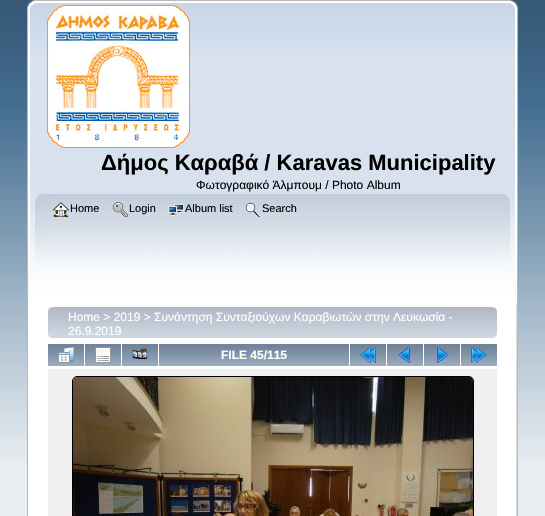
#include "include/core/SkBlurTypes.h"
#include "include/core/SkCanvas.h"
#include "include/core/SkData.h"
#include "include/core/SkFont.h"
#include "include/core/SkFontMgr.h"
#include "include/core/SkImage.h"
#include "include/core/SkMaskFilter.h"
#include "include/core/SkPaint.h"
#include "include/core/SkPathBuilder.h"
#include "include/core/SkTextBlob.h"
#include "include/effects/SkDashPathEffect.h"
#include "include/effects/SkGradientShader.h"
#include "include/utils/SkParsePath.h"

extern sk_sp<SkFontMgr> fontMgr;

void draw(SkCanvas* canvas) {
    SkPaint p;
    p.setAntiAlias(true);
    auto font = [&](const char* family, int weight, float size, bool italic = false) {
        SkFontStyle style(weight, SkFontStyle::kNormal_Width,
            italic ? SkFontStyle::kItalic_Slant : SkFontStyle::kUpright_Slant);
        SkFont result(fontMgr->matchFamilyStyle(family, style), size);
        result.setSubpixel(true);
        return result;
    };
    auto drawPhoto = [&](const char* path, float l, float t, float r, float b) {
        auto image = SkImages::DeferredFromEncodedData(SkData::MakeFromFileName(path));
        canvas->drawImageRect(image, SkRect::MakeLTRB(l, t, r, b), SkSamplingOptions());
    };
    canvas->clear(0xFFE9EEF2);
    drawPhoto("media/1.png", 0, 0, 545, 462);
    drawPhoto("media/2.png", 27, 0, 510, 194);
    drawPhoto("media/3.png", 510, 0, 518, 194);
    drawPhoto("media/4.png", 47, 5, 190, 148);
    auto font1 = font("Liberation Sans", 700, 22);
    p.setColor(0xFF000000);
    canvas->drawString("Δήμος Καραβά / Karavas Municipality", 101, 170, font1, p);
    auto font2 = font("Liberation Sans", 400, 12);
    canvas->drawString("Φωτογραφικό Άλμπουμ / Photo Album", 196, 189, font2, p);
    drawPhoto("media/5.png", 27, 194, 503, 304);
    drawPhoto("media/6.png", 503, 194, 518, 304);
    drawPhoto("media/7.png", 53, 202, 69, 218);
    auto font3 = font("Liberation Sans", 400, 11);
    canvas->drawString("Home", 70, 212, font3, p);
    drawPhoto("media/8.png", 113, 202, 128, 217);
    canvas->drawString("Login", 129, 212, font3, p);
    drawPhoto("media/9.png", 168, 204, 184, 216);
    canvas->drawString("Album list", 185, 212, font3, p);
    drawPhoto("media/10.png", 245, 202, 261, 217);
    canvas->drawString("Search", 262, 212, font3, p);
    p.setColor(0xFFFFFFFF);
    canvas->drawRect(SkRect::MakeLTRB(28, 304, 516, 516), p);
    p.setColor(0xFFB7B7B7);
    canvas->drawRect(SkRect::MakeLTRB(27, 304, 28, 516), p);
    drawPhoto("media/11.png", 516, 304, 518, 516);
    drawPhoto("media/12.png", 48, 307, 492, 338);
    drawPhoto("media/13.png", 492, 307, 497, 338);
    p.setColor(0xFFFFFFFF);
    canvas->drawString("Home > 2019 > Συνάντηση Συνταξιούχων Καραβιωτών στην Λευκωσία -", 68, 321, font2, p);
    canvas->drawString("26.9.2019", 68, 335, font2, p);
    drawPhoto("media/14.png", 48, 344, 84, 366);
    drawPhoto("media/15.png", 58, 347, 74, 363);
    drawPhoto("media/14.png", 85, 344, 121, 366);
    drawPhoto("media/16.png", 95, 347, 111, 363);
    drawPhoto("media/14.png", 122, 344, 158, 366);
    drawPhoto("media/17.png", 132, 348, 148, 360);
    drawPhoto("media/18.png", 159, 344, 349, 366);
    auto font4 = font("Liberation Sans", 700, 12);
    canvas->drawString("FILE 45/115", 221, 359, font4, p);
    drawPhoto("media/14.png", 350, 344, 386, 366);
    drawPhoto("media/19.png", 360, 347, 376, 363);
    drawPhoto("media/14.png", 387, 344, 423, 366);
    drawPhoto("media/20.png", 398, 347, 410, 363);
    drawPhoto("media/14.png", 424, 344, 460, 366);
    drawPhoto("media/21.png", 437, 347, 449, 363);
    drawPhoto("media/14.png", 461, 344, 497, 366);
    drawPhoto("media/22.png", 471, 347, 487, 363);
    p.setColor(0xFFEFEFEF);
    canvas->drawRect(SkRect::MakeLTRB(48, 369, 497, 516), p);
    p.setStyle(SkPaint::kStroke_Style);
    p.setStrokeWidth(1);
    p.setColor(0xFF000000);
    canvas->drawRoundRect(SkRect::MakeLTRB(72.5f, 376.5f, 473.5f, 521.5f), 4.5f, 4.5f, p);
    drawPhoto("media/23.png", 73, 377, 473, 516);
}
